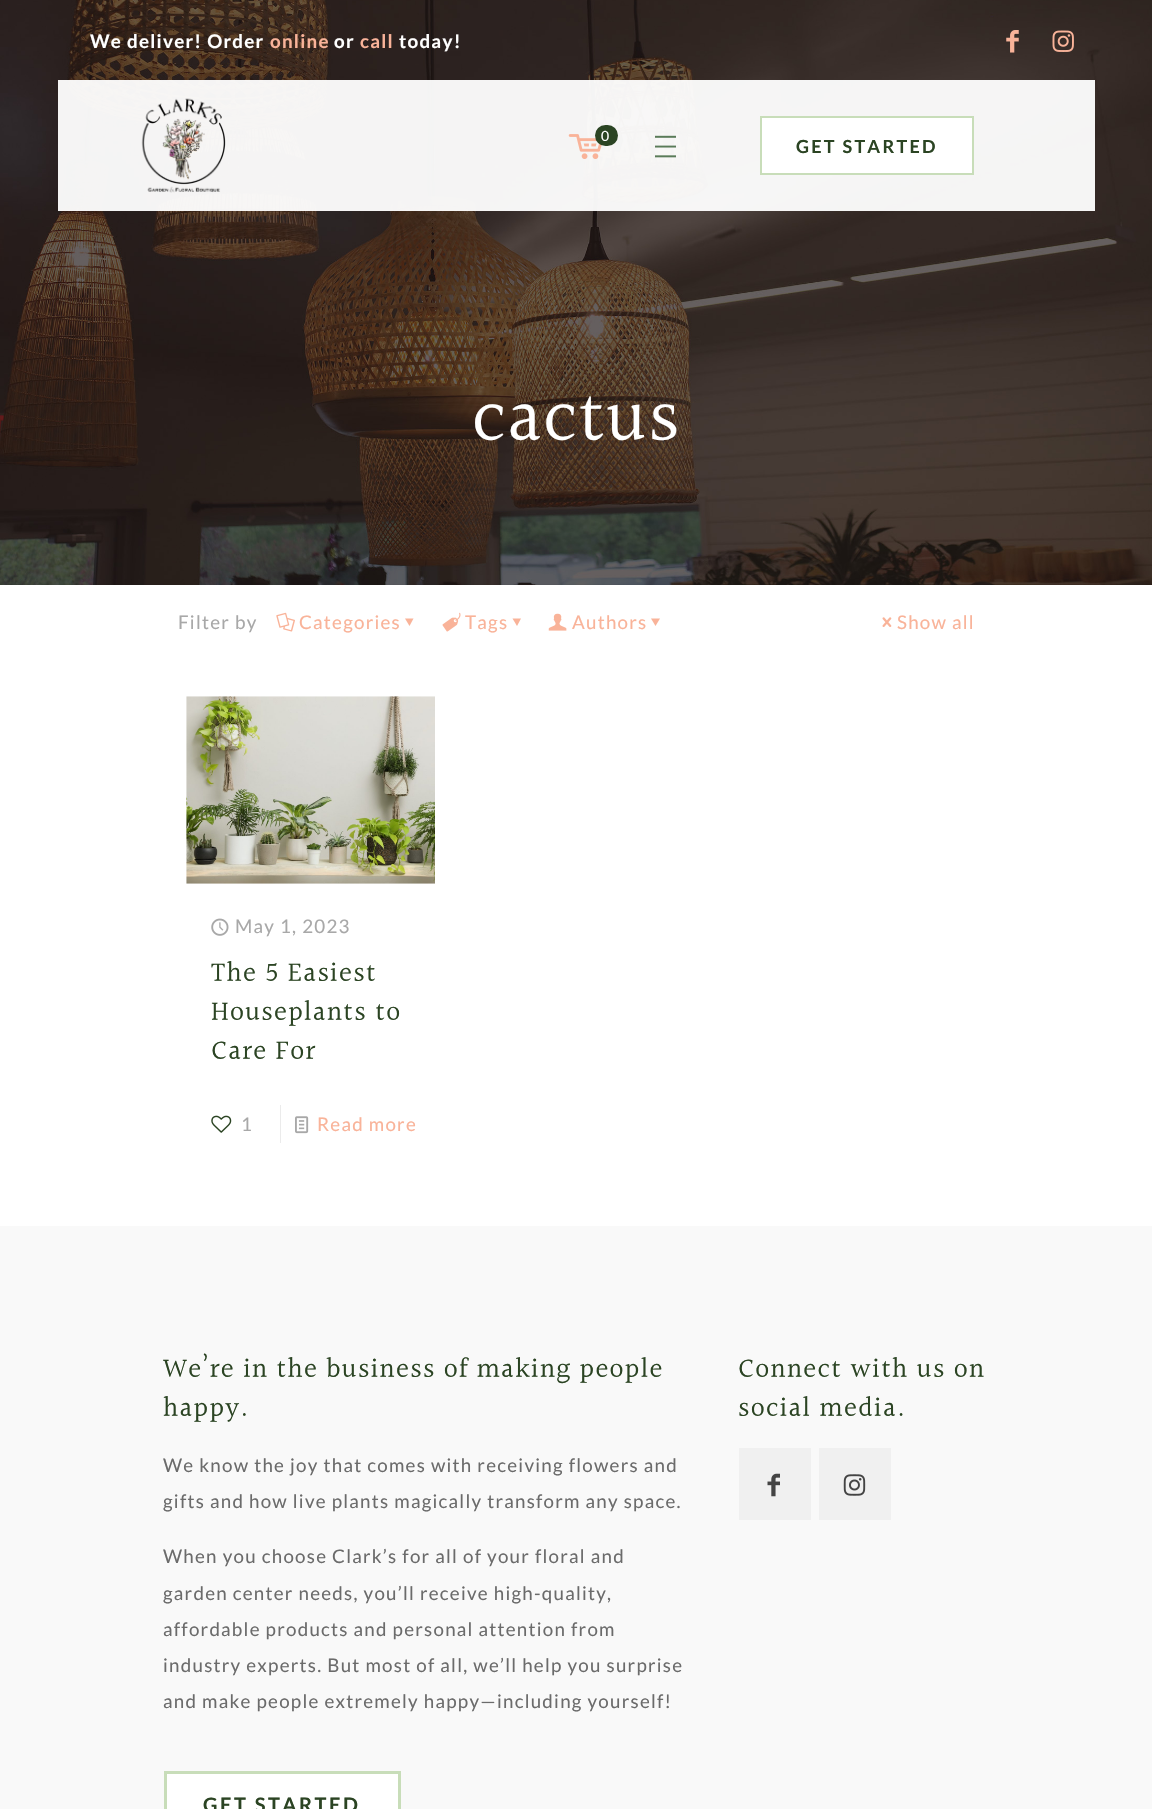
#include "include/core/SkBlurTypes.h"
#include "include/core/SkCanvas.h"
#include "include/core/SkData.h"
#include "include/core/SkFont.h"
#include "include/core/SkFontMgr.h"
#include "include/core/SkImage.h"
#include "include/core/SkMaskFilter.h"
#include "include/core/SkPaint.h"
#include "include/core/SkPathBuilder.h"
#include "include/core/SkTextBlob.h"
#include "include/effects/SkDashPathEffect.h"
#include "include/effects/SkGradientShader.h"
#include "include/utils/SkParsePath.h"

extern sk_sp<SkFontMgr> fontMgr;

void draw(SkCanvas* canvas) {
    SkPaint p;
    p.setAntiAlias(true);
    auto font = [&](const char* family, int weight, float size, bool italic = false) {
        SkFontStyle style(weight, SkFontStyle::kNormal_Width,
            italic ? SkFontStyle::kItalic_Slant : SkFontStyle::kUpright_Slant);
        SkFont result(fontMgr->matchFamilyStyle(family, style), size);
        result.setSubpixel(true);
        return result;
    };
    auto drawTracked = [&](const char* s, float x, float y, const SkFont& font, const SkPaint& ink, float letter, float word) {
        std::vector<SkGlyphID> glyphs(font.countText(s, strlen(s), SkTextEncoding::kUTF8));
        std::vector<float> xs(glyphs.size());
        font.textToGlyphs(s, strlen(s), SkTextEncoding::kUTF8, glyphs);
        font.getXPos(glyphs, xs, x);
        float extra = 0;
        for (size_t i = 0; i < glyphs.size(); i++) {
            xs[i] += extra;
            extra += letter + word * (glyphs[i] == font.unicharToGlyph(' '));
        }
        canvas->drawTextBlob(SkTextBlob::MakeFromPosHGlyphs(glyphs, xs, y, font), 0, 0, ink);
    };
    auto drawPhoto = [&](const char* path, float l, float t, float r, float b) {
        auto image = SkImages::DeferredFromEncodedData(SkData::MakeFromFileName(path));
        canvas->drawImageRect(image, SkRect::MakeLTRB(l, t, r, b), SkSamplingOptions());
    };
    canvas->clear(0xFFFFFFFF);
    drawPhoto("media/6.png", 0, 0, 1152, 585);
    auto font1 = font("Lato", 700, 18.75f);
    p.setColor(0xFFFFFFFF);
    drawTracked("We deliver! Order", 90, 48, font1, p, 1.25f, 0);
    p.setColor(0xFFF9B399);
    drawTracked("online", 270, 48, font1, p, 1.25f, 0);
    p.setColor(0xFFFFFFFF);
    drawTracked("or", 334, 48, font1, p, 1.25f, 0);
    p.setColor(0xFFF9B399);
    drawTracked("call", 360, 48, font1, p, 1.25f, 0);
    p.setColor(0xFFFFFFFF);
    drawTracked("today!", 399, 48, font1, p, 1.25f, 0);
    drawPhoto("media/1.png", 1006, 30, 1019, 53);
    drawPhoto("media/2.png", 1052, 30, 1074, 52);
    p.setColor(0xF2FFFFFF);
    canvas->drawRect(SkRect::MakeLTRB(58, 80, 1095, 211), p);
    drawPhoto("media/3.png", 141, 98, 226, 193);
    drawPhoto("media/4.png", 568, 134, 602, 159);
    p.setColor(0xFF2B4423);
    canvas->drawRoundRect(SkRect::MakeLTRB(595, 125, 618, 146), 10.5f, 10.5f, p);
    auto font2 = font("Lato", 400, 14);
    p.setColor(0xFFFFFFFF);
    drawTracked("0", 601, 141, font2, p, 1.25f, 0);
    drawPhoto("media/5.png", 655, 135, 676, 158);
    canvas->drawRect(SkRect::MakeLTRB(761, 117, 973, 174), p);
    p.setStyle(SkPaint::kStroke_Style);
    p.setStrokeWidth(2);
    p.setColor(0xFFC8DDB9);
    canvas->drawRect(SkRect::MakeLTRB(761, 117, 973, 174), p);
    auto font3 = font("Lato", 700, 18);
    p.setStyle(SkPaint::kFill_Style);
    p.setColor(0xFF2B4423);
    drawTracked("GET STARTED", 796, 153, font3, p, 2.25f, 0);
    auto font4 = font("Halant", 400, 75);
    p.setColor(0xFFFFFFFF);
    drawTracked("cactus", 472, 443, font4, p, 1.25f, 0);
    auto font5 = font("Lato", 400, 18.75f);
    p.setColor(0xFFA8A8A8);
    drawTracked("Filter by", 178, 629, font5, p, 1.25f, 0);
    drawPhoto("media/7.png", 276, 612, 295, 632);
    p.setColor(0xFFF9B399);
    drawTracked("Categories", 299, 629, font5, p, 1.25f, 0);
    canvas->drawPath(SkPathBuilder().moveTo(413.5f, 618.5f).lineTo(409.5f, 626).lineTo(405, 618.5f).close().detach(), p);
    drawPhoto("media/8.png", 442, 612, 461, 632);
    drawTracked("Tags", 465, 629, font5, p, 1.25f, 0);
    canvas->drawPath(SkPathBuilder().moveTo(521, 618.5f).lineTo(517, 626).lineTo(512.5f, 618.5f).close().detach(), p);
    drawPhoto("media/9.png", 548, 613, 567, 631);
    drawTracked("Authors", 572, 629, font5, p, 1.25f, 0);
    canvas->drawPath(SkPathBuilder().moveTo(660, 618.5f).lineTo(655.5f, 626).lineTo(651, 618.5f).close().detach(), p);
    drawPhoto("media/10.png", 882, 617, 892, 627);
    drawTracked("Show all", 897, 629, font5, p, 1.25f, 0);
    drawPhoto("media/11.png", 186, 696, 435, 884);
    drawPhoto("media/12.png", 211, 918, 229, 936);
    p.setColor(0xFFA8A8A8);
    drawTracked("May 1, 2023", 235, 933, font5, p, 1.25f, 0);
    auto font6 = font("Halant", 400, 27.5f);
    p.setColor(0xFF2B4423);
    {
        const struct { const char* s; float x, y; } items[] = {
            {"The 5 Easiest", 211, 982},
            {"Houseplants to", 211, 1021},
            {"Care For", 211, 1060},
        };
        for (auto [s, x, y] : items) {
            drawTracked(s, x, y, font6, p, 1.25f, 0);
        }
    }
    drawPhoto("media/13.png", 211, 1115, 232, 1133);
    p.setColor(0xFFA8A8A8);
    drawTracked("1", 241, 1131, font5, p, 1.25f, 0);
    p.setColor(0xFFEBEBEB);
    canvas->drawRect(SkRect::MakeLTRB(280, 1105, 281, 1143), p);
    drawPhoto("media/14.png", 295, 1116, 309, 1134);
    p.setColor(0xFFF9B399);
    drawTracked("Read more", 317, 1131, font5, p, 1.25f, 0);
    p.setColor(0xFFF9F9F9);
    canvas->drawRect(SkRect::MakeLTRB(0, 1226, 1152, 1809), p);
    p.setColor(0xFF2B4423);
    drawTracked("We’re in the business of making people", 163, 1378, font6, p, 1.25f, 0);
    drawTracked("happy.", 163, 1417, font6, p, 1.25f, 0);
    p.setColor(0xFF6B6B6B);
    {
        const struct { const char* s; float x, y; } items[] = {
            {"We know the joy that comes with receiving flowers and", 163, 1472},
            {"gifts and how live plants magically transform any space.", 163, 1508},
            {"When you choose Clark’s for all of your floral and", 163, 1563},
            {"garden center needs, you’ll receive high-quality,", 163, 1600},
            {"affordable products and personal attention from", 163, 1636},
            {"industry experts. But most of all, we’ll help you surprise", 163, 1672},
            {"and make people extremely happy—including yourself!", 163, 1708},
        };
        for (auto [s, x, y] : items) {
            drawTracked(s, x, y, font5, p, 1.25f, 0);
        }
    }
    p.setColor(0xFFFFFFFF);
    canvas->drawRect(SkRect::MakeLTRB(165.5f, 1772.5f, 399.5f, 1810.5f), p);
    p.setStyle(SkPaint::kStroke_Style);
    p.setStrokeWidth(3);
    p.setColor(0xFFC8DDB9);
    canvas->drawRect(SkRect::MakeLTRB(165.5f, 1772.5f, 399.5f, 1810.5f), p);
    auto font7 = font("Lato", 700, 20);
    p.setStyle(SkPaint::kFill_Style);
    p.setColor(0xFF2B4423);
    drawTracked("GET STARTED", 203, 1812, font7, p, 2.5f, 0);
    drawTracked("Connect with us on", 738, 1378, font6, p, 1.25f, 0);
    drawTracked("social media.", 738, 1417, font6, p, 1.25f, 0);
    p.setColor(0xFFF0F0F0);
    canvas->drawRect(SkRect::MakeLTRB(739, 1448, 811, 1520), p);
    drawPhoto("media/15.png", 767, 1473, 780, 1497);
    canvas->drawRect(SkRect::MakeLTRB(819, 1448, 891, 1520), p);
    drawPhoto("media/16.png", 843, 1474, 866, 1496);
}
